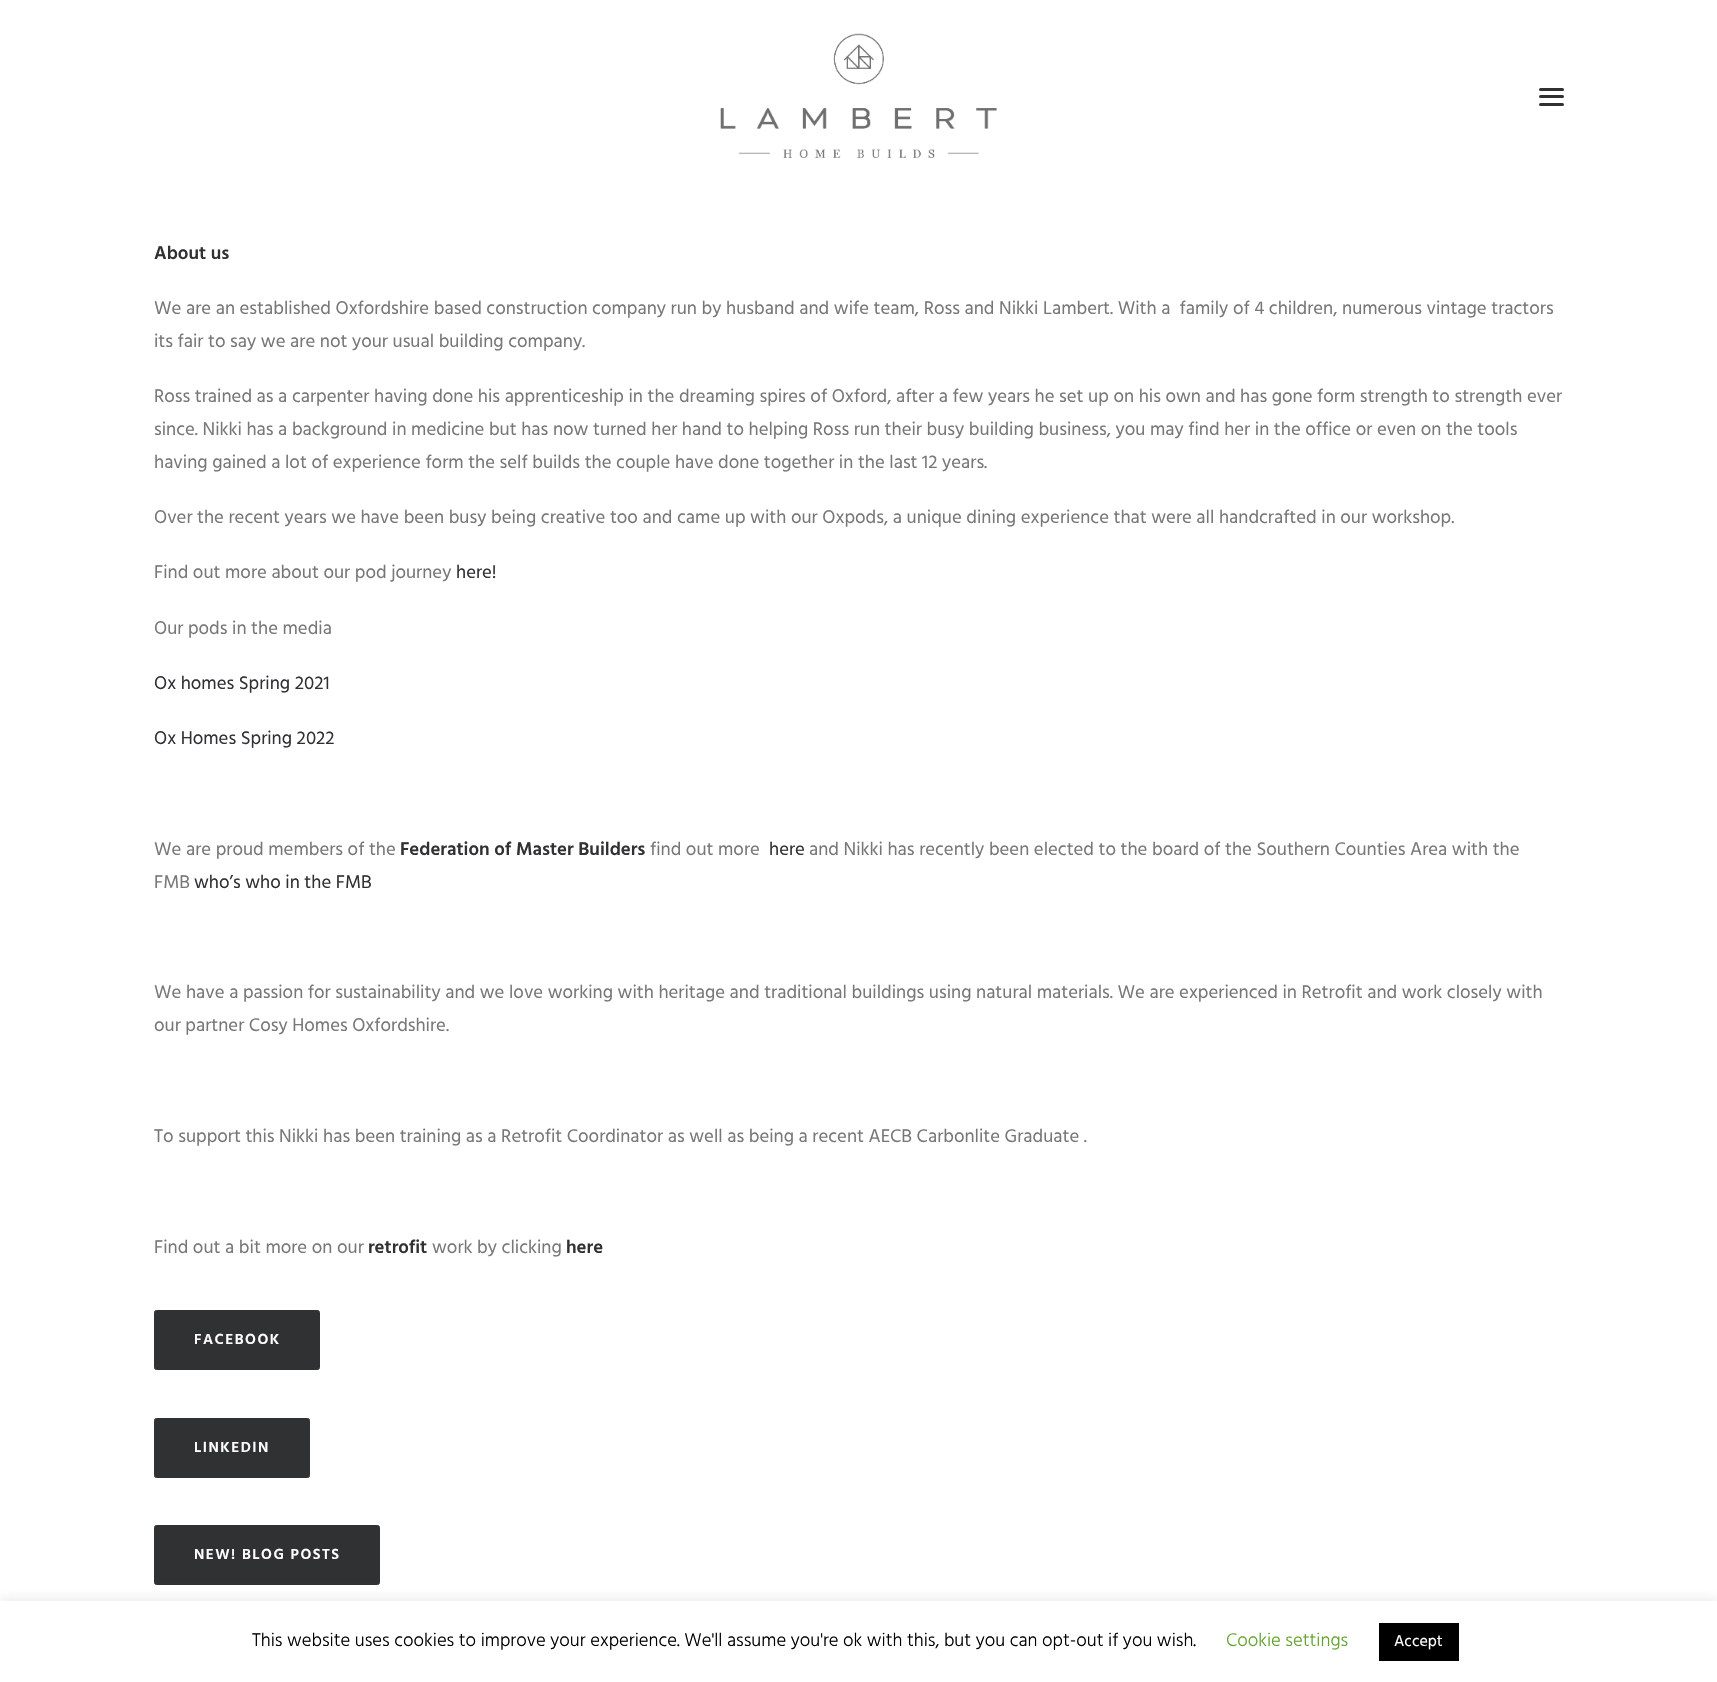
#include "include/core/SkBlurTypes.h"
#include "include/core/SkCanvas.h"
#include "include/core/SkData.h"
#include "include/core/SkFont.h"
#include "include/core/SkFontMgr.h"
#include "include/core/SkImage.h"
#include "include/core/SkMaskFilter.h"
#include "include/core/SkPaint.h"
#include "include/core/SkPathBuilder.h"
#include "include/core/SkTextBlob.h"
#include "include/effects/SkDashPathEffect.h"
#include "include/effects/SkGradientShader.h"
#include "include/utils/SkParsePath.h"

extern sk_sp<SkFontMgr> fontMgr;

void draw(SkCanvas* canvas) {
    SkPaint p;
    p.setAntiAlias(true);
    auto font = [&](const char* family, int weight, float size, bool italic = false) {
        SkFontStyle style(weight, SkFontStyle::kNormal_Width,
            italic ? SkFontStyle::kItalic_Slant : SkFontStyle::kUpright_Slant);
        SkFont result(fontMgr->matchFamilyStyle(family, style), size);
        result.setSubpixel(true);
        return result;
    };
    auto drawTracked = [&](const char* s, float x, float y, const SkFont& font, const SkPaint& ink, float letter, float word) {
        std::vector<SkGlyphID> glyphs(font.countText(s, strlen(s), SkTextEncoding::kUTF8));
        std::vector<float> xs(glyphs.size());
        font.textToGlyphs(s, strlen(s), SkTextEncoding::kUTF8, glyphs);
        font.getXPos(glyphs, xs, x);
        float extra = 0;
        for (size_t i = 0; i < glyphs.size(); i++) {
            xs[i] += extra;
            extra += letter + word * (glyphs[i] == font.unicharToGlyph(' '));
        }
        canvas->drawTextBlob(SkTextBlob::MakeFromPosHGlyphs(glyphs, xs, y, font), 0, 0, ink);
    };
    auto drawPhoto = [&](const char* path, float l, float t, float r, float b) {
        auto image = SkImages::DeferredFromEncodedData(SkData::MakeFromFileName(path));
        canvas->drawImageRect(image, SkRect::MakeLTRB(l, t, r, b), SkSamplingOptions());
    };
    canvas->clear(0xFFFFFFFF);
    drawPhoto("media/1.png", 720, 33, 997, 158);
    p.setColor(0xFF303133);
    canvas->drawRoundRect(SkRect::MakeLTRB(1539, 95, 1564, 98), 1.5f, 1.5f, p);
    canvas->drawRoundRect(SkRect::MakeLTRB(1539, 88, 1564, 91), 1.5f, 1.5f, p);
    canvas->drawRoundRect(SkRect::MakeLTRB(1539, 103, 1564, 106), 1.5f, 1.5f, p);
    auto font1 = font("Hind", 600, 18.75f);
    canvas->drawString("About us", 154, 259, font1, p);
    auto font2 = font("Hind", 400, 18.75f);
    p.setColor(0xFF777777);
    {
        const struct { const char* s; float x, y; } items[] = {
            {"We are an established Oxfordshire based construction company run by husband and wife team, Ross and Nikki Lambert. With a  family of 4 children, numerous vintage tractors", 154, 314},
            {"its fair to say we are not your usual building company.", 154, 347},
            {"Ross trained as a carpenter having done his apprenticeship in the dreaming spires of Oxford, after a few years he set up on his own and has gone form strength to strength ever", 154, 402},
            {"since. Nikki has a background in medicine but has now turned her hand to helping Ross run their busy building business, you may find her in the office or even on the tools", 154, 435},
            {"having gained a lot of experience form the self builds the couple have done together in the last 12 years.", 154, 468},
            {"Over the recent years we have been busy being creative too and came up with our Oxpods, a unique dining experience that were all handcrafted in our workshop.", 154, 523},
            {"Find out more about our pod journey", 154, 578},
        };
        for (auto [s, x, y] : items) {
            canvas->drawString(s, x, y, font2, p);
        }
    }
    p.setColor(0xFF303133);
    canvas->drawString("here!", 456, 578, font2, p);
    p.setColor(0xFF777777);
    canvas->drawString("Our pods in the media", 154, 634, font2, p);
    p.setColor(0xFF303133);
    canvas->drawString("Ox homes Spring 2021", 154, 689, font2, p);
    canvas->drawString("Ox Homes Spring 2022", 154, 744, font2, p);
    p.setColor(0xFF777777);
    canvas->drawString("We are proud members of the", 154, 855, font2, p);
    p.setColor(0xFF303133);
    canvas->drawString("Federation of Master Builders", 400, 855, font1, p);
    p.setColor(0xFF777777);
    canvas->drawString("find out more", 650, 855, font2, p);
    p.setColor(0xFF303133);
    canvas->drawString("here", 769, 855, font2, p);
    p.setColor(0xFF777777);
    canvas->drawString("and Nikki has recently been elected to the board of the Southern Counties Area with the", 809, 855, font2, p);
    canvas->drawString("FMB", 154, 888, font2, p);
    p.setColor(0xFF303133);
    canvas->drawString("who’s who in the FMB", 194, 888, font2, p);
    p.setColor(0xFF777777);
    {
        const struct { const char* s; float x, y; } items[] = {
            {"We have a passion for sustainability and we love working with heritage and traditional buildings using natural materials. We are experienced in Retrofit and work closely with", 154, 998},
            {"our partner Cosy Homes Oxfordshire.", 154, 1031},
            {"To support this Nikki has been training as a Retrofit Coordinator as well as being a recent AECB Carbonlite Graduate .", 154, 1142},
            {"Find out a bit more on our", 154, 1253},
        };
        for (auto [s, x, y] : items) {
            canvas->drawString(s, x, y, font2, p);
        }
    }
    p.setColor(0xFF303133);
    canvas->drawString("retrofit", 368, 1253, font1, p);
    p.setColor(0xFF777777);
    canvas->drawString("work by clicking", 432, 1253, font2, p);
    p.setColor(0xFF303133);
    canvas->drawString("here", 566, 1253, font1, p);
    canvas->drawRoundRect(SkRect::MakeLTRB(154.5f, 1310.5f, 319.5f, 1369.5f), 2, 2, p);
    p.setStyle(SkPaint::kStroke_Style);
    p.setStrokeWidth(1);
    canvas->drawRoundRect(SkRect::MakeLTRB(154.5f, 1310.5f, 319.5f, 1369.5f), 2, 2, p);
    auto font3 = font("Hind", 600, 15);
    p.setStyle(SkPaint::kFill_Style);
    p.setColor(0xFFFFFFFF);
    drawTracked("FACEBOOK", 194, 1344, font3, p, 1.5f, 0);
    p.setColor(0xFF303133);
    canvas->drawRoundRect(SkRect::MakeLTRB(154.5f, 1418.5f, 309.5f, 1477.5f), 2, 2, p);
    p.setStyle(SkPaint::kStroke_Style);
    canvas->drawRoundRect(SkRect::MakeLTRB(154.5f, 1418.5f, 309.5f, 1477.5f), 2, 2, p);
    p.setStyle(SkPaint::kFill_Style);
    p.setColor(0xFFFFFFFF);
    drawTracked("LINKEDIN", 194, 1452, font3, p, 1.5f, 0);
    p.setColor(0xFF303133);
    canvas->drawRoundRect(SkRect::MakeLTRB(154.5f, 1525.5f, 379.5f, 1584.5f), 2, 2, p);
    p.setStyle(SkPaint::kStroke_Style);
    canvas->drawRoundRect(SkRect::MakeLTRB(154.5f, 1525.5f, 379.5f, 1584.5f), 2, 2, p);
    p.setStyle(SkPaint::kFill_Style);
    p.setColor(0xFFFFFFFF);
    drawTracked("NEW! BLOG POSTS", 194, 1559, font3, p, 1.5f, 0);
    p.setColor(0x4DACABAB);
    p.setMaskFilter(SkMaskFilter::MakeBlur(kNormal_SkBlurStyle, 6));
    canvas->drawRect(SkRect::MakeLTRB(0, 1600, 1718, 1681), p);
    p.setMaskFilter(nullptr);
    p.setColor(0xFFFFFFFF);
    canvas->drawRect(SkRect::MakeLTRB(0, 1601, 1717, 1682), p);
    auto font4 = font("Hind", 300, 18.75f);
    p.setColor(0xFF000000);
    canvas->drawString("This website uses cookies to improve your experience. We'll assume you're ok with this, but you can opt-out if you wish.", 252, 1646, font4, p);
    p.setColor(0xFF62A329);
    canvas->drawString("Cookie settings", 1226, 1646, font4, p);
    p.setColor(0xFF000000);
    canvas->drawRect(SkRect::MakeLTRB(1379, 1623, 1459, 1661), p);
    auto font5 = font("Hind", 400, 16);
    p.setColor(0xFFFFFFFF);
    canvas->drawString("Accept", 1394, 1646, font5, p);
}
